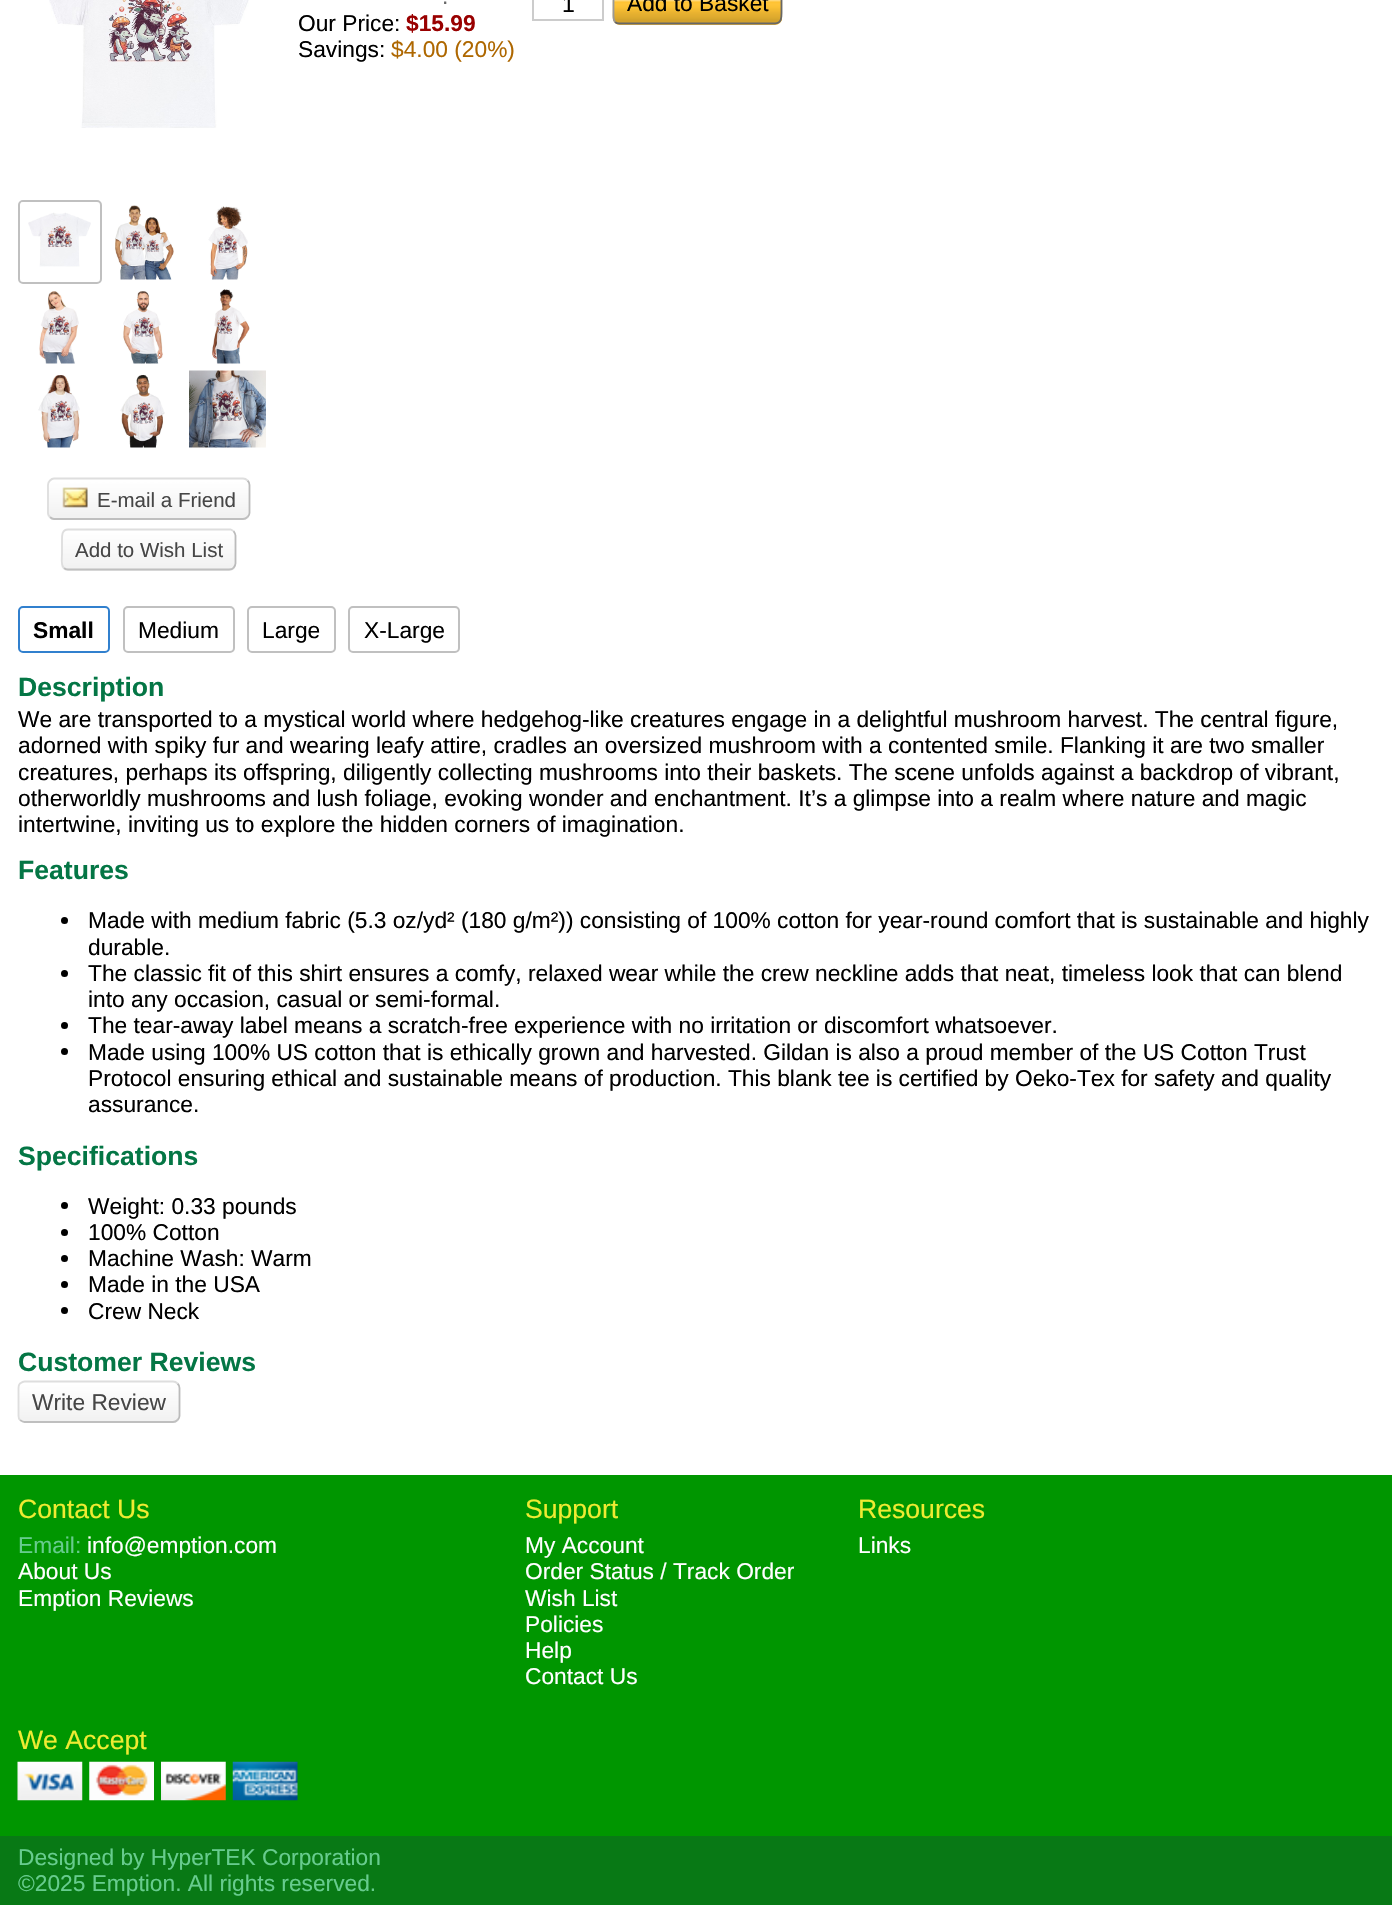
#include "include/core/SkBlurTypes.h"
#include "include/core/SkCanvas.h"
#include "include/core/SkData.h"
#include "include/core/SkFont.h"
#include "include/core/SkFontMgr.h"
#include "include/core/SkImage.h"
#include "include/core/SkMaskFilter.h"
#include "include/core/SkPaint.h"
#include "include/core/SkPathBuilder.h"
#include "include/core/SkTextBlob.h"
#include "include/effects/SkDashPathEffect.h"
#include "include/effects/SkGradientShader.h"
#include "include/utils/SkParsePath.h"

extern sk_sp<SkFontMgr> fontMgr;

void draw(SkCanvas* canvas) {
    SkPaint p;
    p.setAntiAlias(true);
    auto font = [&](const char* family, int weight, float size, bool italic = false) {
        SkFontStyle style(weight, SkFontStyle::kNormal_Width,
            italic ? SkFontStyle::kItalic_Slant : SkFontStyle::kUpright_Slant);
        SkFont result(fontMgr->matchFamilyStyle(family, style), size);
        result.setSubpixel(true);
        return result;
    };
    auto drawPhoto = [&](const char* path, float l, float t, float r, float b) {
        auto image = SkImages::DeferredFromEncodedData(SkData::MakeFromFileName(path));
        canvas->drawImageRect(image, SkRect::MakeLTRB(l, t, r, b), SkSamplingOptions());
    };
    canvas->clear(0xFFFFFFFF);
    auto font1 = font("Liberation Sans", 400, 22.75f);
    p.setColor(0xFF676767);
    canvas->drawString(".", 442, 4, font1, p);
    p.setColor(0xFF000000);
    canvas->drawString("Our Price:", 298, 31, font1, p);
    auto font2 = font("Liberation Sans", 700, 22.75f);
    p.setColor(0xFF990000);
    canvas->drawString("$15.99", 406, 31, font2, p);
    p.setColor(0xFF000000);
    canvas->drawString("Savings:", 298, 57, font1, p);
    p.setColor(0xFFAE6700);
    canvas->drawString("$4.00 (20%)", 391, 57, font1, p);
    p.setStyle(SkPaint::kStroke_Style);
    p.setStrokeWidth(2);
    p.setColor(0xFFCCCCCC);
    canvas->drawRect(SkRect::MakeLTRB(533, -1, 603, 20), p);
    auto font3 = font("Liberation Sans", 400, 23);
    p.setStyle(SkPaint::kFill_Style);
    p.setColor(0xFF000000);
    canvas->drawString("1", 562, 12, font3, p);
    p.setColor(0xFFFFC231);
    canvas->drawRoundRect(SkRect::MakeLTRB(613, -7, 782, 25), 7, 7, p);
    drawPhoto("media/1.png", 612, 0, 783, 24);
    p.setStyle(SkPaint::kStroke_Style);
    p.setStrokeWidth(1.8f);
    p.setColor(0xFF676767);
    canvas->drawPath(SkPathBuilder().moveTo(779.5f, -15).cubicTo(782, -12.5f, 781.5f, -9, 781.5f, -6).lineTo(781.5f, 13).cubicTo(781.5f, 17.5f, 781.5f, 23.5f, 775, 23.5f).lineTo(619, 23.5f).cubicTo(617.5f, 23.5f, 616, 23, 615, 22).detach(), p);
    p.setColor(0xFF999999);
    canvas->drawPath(SkPathBuilder().moveTo(615, 22).cubicTo(613, 19.5f, 613.5f, 16, 613.5f, 13).lineTo(613.5f, -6).cubicTo(613.5f, -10.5f, 613.5f, -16.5f, 619.5f, -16.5f).lineTo(776, -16.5f).cubicTo(777.5f, -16.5f, 778.5f, -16, 779.5f, -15).detach(), p);
    p.setStyle(SkPaint::kFill_Style);
    p.setColor(0xFF000000);
    canvas->drawString("Add to Basket", 627, 11, font1, p);
    p.setStyle(SkPaint::kStroke_Style);
    p.setStrokeWidth(2);
    p.setColor(0xFF3180CE);
    canvas->drawRoundRect(SkRect::MakeLTRB(19, 607, 109, 652), 4, 4, p);
    p.setStyle(SkPaint::kFill_Style);
    p.setColor(0xFF000000);
    canvas->drawString("Small", 33, 638, font2, p);
    p.setStyle(SkPaint::kStroke_Style);
    p.setColor(0xFFC0C0C0);
    canvas->drawRoundRect(SkRect::MakeLTRB(124, 607, 234, 652), 4, 4, p);
    p.setStyle(SkPaint::kFill_Style);
    p.setColor(0xFF000000);
    canvas->drawString("Medium", 138, 638, font1, p);
    p.setStyle(SkPaint::kStroke_Style);
    p.setColor(0xFFC0C0C0);
    canvas->drawRoundRect(SkRect::MakeLTRB(248, 607, 335, 652), 4, 4, p);
    p.setStyle(SkPaint::kFill_Style);
    p.setColor(0xFF000000);
    canvas->drawString("Large", 262, 638, font1, p);
    p.setStyle(SkPaint::kStroke_Style);
    p.setColor(0xFFC0C0C0);
    canvas->drawRoundRect(SkRect::MakeLTRB(349, 607, 459, 652), 4, 4, p);
    p.setStyle(SkPaint::kFill_Style);
    p.setColor(0xFF000000);
    canvas->drawString("X-Large", 364, 638, font1, p);
    auto font4 = font("Liberation Sans", 700, 26.6f);
    p.setColor(0xFF047645);
    canvas->drawString("Description", 18, 696, font4, p);
    p.setColor(0xFF000000);
    {
        const struct { const char* s; float x, y; } items[] = {
            {"We are transported to a mystical world where hedgehog-like creatures engage in a delightful mushroom harvest. The central figure,", 18, 727},
            {"adorned with spiky fur and wearing leafy attire, cradles an oversized mushroom with a contented smile. Flanking it are two smaller", 18, 753},
            {"creatures, perhaps its offspring, diligently collecting mushrooms into their baskets. The scene unfolds against a backdrop of vibrant,", 18, 780},
            {"otherworldly mushrooms and lush foliage, evoking wonder and enchantment. It’s a glimpse into a realm where nature and magic", 18, 806},
            {"intertwine, inviting us to explore the hidden corners of imagination.", 18, 832},
        };
        for (auto [s, x, y] : items) {
            canvas->drawString(s, x, y, font1, p);
        }
    }
    p.setColor(0xFF047645);
    canvas->drawString("Features", 18, 879, font4, p);
    p.setColor(0xFF000000);
    canvas->drawCircle(64.5f, 920.5f, 3.5f, p);
    canvas->drawString("Made with medium fabric (5.3 oz/yd² (180 g/m²)) consisting of 100% cotton for year-round comfort that is sustainable and highly", 88, 928, font1, p);
    canvas->drawString("durable.", 88, 955, font1, p);
    canvas->drawCircle(64.5f, 973.5f, 3.5f, p);
    canvas->drawString("The classic fit of this shirt ensures a comfy, relaxed wear while the crew neckline adds that neat, timeless look that can blend", 88, 981, font1, p);
    canvas->drawString("into any occasion, casual or semi-formal.", 88, 1007, font1, p);
    canvas->drawCircle(64.5f, 1025.5f, 3.5f, p);
    canvas->drawString("The tear-away label means a scratch-free experience with no irritation or discomfort whatsoever.", 88, 1033, font1, p);
    canvas->drawCircle(64.5f, 1051.5f, 3.5f, p);
    {
        const struct { const char* s; float x, y; } items[] = {
            {"Made using 100% US cotton that is ethically grown and harvested. Gildan is also a proud member of the US Cotton Trust", 88, 1060},
            {"Protocol ensuring ethical and sustainable means of production. This blank tee is certified by Oeko-Tex for safety and quality", 88, 1086},
            {"assurance.", 88, 1112},
        };
        for (auto [s, x, y] : items) {
            canvas->drawString(s, x, y, font1, p);
        }
    }
    p.setColor(0xFF047645);
    canvas->drawString("Specifications", 18, 1165, font4, p);
    p.setColor(0xFF000000);
    canvas->drawCircle(64.5f, 1205.5f, 3.5f, p);
    canvas->drawString("Weight: 0.33 pounds", 88, 1214, font1, p);
    canvas->drawCircle(64.5f, 1232.5f, 3.5f, p);
    canvas->drawString("100% Cotton", 88, 1240, font1, p);
    canvas->drawCircle(64.5f, 1258.5f, 3.5f, p);
    canvas->drawString("Machine Wash: Warm", 88, 1266, font1, p);
    canvas->drawCircle(64.5f, 1284.5f, 3.5f, p);
    canvas->drawString("Made in the USA", 88, 1292, font1, p);
    canvas->drawCircle(64.5f, 1310.5f, 3.5f, p);
    canvas->drawString("Crew Neck", 88, 1319, font1, p);
    p.setColor(0xFF047645);
    canvas->drawString("Customer Reviews", 18, 1371, font4, p);
    p.setColor(0xFFEDEDED);
    canvas->drawRoundRect(SkRect::MakeLTRB(18, 1381, 180, 1423), 7, 7, p);
    drawPhoto("media/2.png", 18, 1382, 180, 1422);
    p.setStyle(SkPaint::kStroke_Style);
    p.setStrokeWidth(1.8f);
    p.setColor(0xFFBBBBBB);
    canvas->drawPath(SkPathBuilder().moveTo(177.5f, 1383.5f).cubicTo(178.5f, 1384.5f, 179.5f, 1386, 179.5f, 1388).lineTo(179.5f, 1416).cubicTo(179.5f, 1417.5f, 178.5f, 1419, 177.5f, 1420).detach(), p);
    p.setColor(0xFFBFBFBF);
    canvas->drawPath(SkPathBuilder().moveTo(177.5f, 1420).cubicTo(176.5f, 1421, 175, 1422, 173, 1422).lineTo(24.5f, 1422).cubicTo(23, 1422, 21.5f, 1421, 20, 1420).detach(), p);
    p.setColor(0xFFDEDEDE);
    canvas->drawPath(SkPathBuilder().moveTo(20, 1420).cubicTo(19, 1419, 18.5f, 1417.5f, 18.5f, 1416).lineTo(18.5f, 1388).cubicTo(18.5f, 1386, 19, 1384.5f, 20, 1383.5f).cubicTo(21.5f, 1382.5f, 23, 1381.5f, 24.5f, 1381.5f).lineTo(173, 1381.5f).cubicTo(175, 1381.5f, 176.5f, 1382.5f, 177.5f, 1383.5f).detach(), p);
    p.setStyle(SkPaint::kFill_Style);
    p.setColor(0xFF464646);
    canvas->drawString("Write Review", 32, 1410, font1, p);
    drawPhoto("media/3.png", 49, 0, 249, 128);
    p.setStyle(SkPaint::kStroke_Style);
    p.setStrokeWidth(2);
    p.setColor(0xFFC0C0C0);
    canvas->drawRoundRect(SkRect::MakeLTRB(19, 201, 101, 283), 4, 4, p);
    drawPhoto("media/4.png", 21, 202, 91, 267);
    drawPhoto("media/5.png", 115, 205, 174, 280);
    drawPhoto("media/6.png", 208, 206, 248, 280);
    drawPhoto("media/7.png", 39, 291, 79, 364);
    drawPhoto("media/8.png", 123, 291, 163, 364);
    drawPhoto("media/9.png", 212, 289, 250, 364);
    drawPhoto("media/10.png", 38, 375, 80, 448);
    drawPhoto("media/11.png", 120, 374, 165, 448);
    drawPhoto("media/12.png", 189, 370, 266, 448);
    p.setStyle(SkPaint::kFill_Style);
    p.setColor(0xFFEDEDED);
    canvas->drawRoundRect(SkRect::MakeLTRB(47, 478, 250, 520), 7, 7, p);
    drawPhoto("media/13.png", 47, 479, 250, 519);
    p.setStyle(SkPaint::kStroke_Style);
    p.setStrokeWidth(1.8f);
    p.setColor(0xFFBBBBBB);
    canvas->drawPath(SkPathBuilder().moveTo(247.5f, 480.5f).cubicTo(248.5f, 481.5f, 249.5f, 483, 249.5f, 485).lineTo(249.5f, 513).cubicTo(249.5f, 514.5f, 248.5f, 516, 247.5f, 517).detach(), p);
    p.setColor(0xFFBFBFBF);
    canvas->drawPath(SkPathBuilder().moveTo(247.5f, 517).cubicTo(246.5f, 518, 245, 519, 243, 519).lineTo(54, 519).cubicTo(52.5f, 519, 51, 518, 50, 517).detach(), p);
    p.setColor(0xFFDEDEDE);
    canvas->drawPath(SkPathBuilder().moveTo(50, 517).cubicTo(49, 516, 48, 514.5f, 48, 513).lineTo(48, 485).cubicTo(48, 483, 49, 481.5f, 50, 480.5f).cubicTo(51, 479.5f, 52.5f, 478.5f, 54, 478.5f).lineTo(243, 478.5f).cubicTo(245, 478.5f, 246.5f, 479.5f, 247.5f, 480.5f).detach(), p);
    drawPhoto("media/14.png", 62, 487, 88, 508);
    auto font5 = font("Liberation Sans", 400, 20.5f);
    p.setStyle(SkPaint::kFill_Style);
    p.setColor(0xFF464646);
    canvas->drawString("E-mail a Friend", 97, 507, font5, p);
    p.setColor(0xFFEDEDED);
    canvas->drawRoundRect(SkRect::MakeLTRB(61, 529, 236, 571), 7, 7, p);
    drawPhoto("media/15.png", 61, 529, 236, 569);
    p.setStyle(SkPaint::kStroke_Style);
    p.setColor(0xFFBBBBBB);
    canvas->drawPath(SkPathBuilder().moveTo(233.5f, 531).cubicTo(234.5f, 532.5f, 235.5f, 534, 235.5f, 535.5f).lineTo(235.5f, 563.5f).cubicTo(235.5f, 565, 234.5f, 566.5f, 233.5f, 568).detach(), p);
    p.setColor(0xFFBFBFBF);
    canvas->drawPath(SkPathBuilder().moveTo(233.5f, 568).cubicTo(232.5f, 569, 231, 569.5f, 229, 569.5f).lineTo(68, 569.5f).cubicTo(66.5f, 569.5f, 65, 569, 64, 568).detach(), p);
    p.setColor(0xFFDEDEDE);
    canvas->drawPath(SkPathBuilder().moveTo(64, 568).cubicTo(60.5f, 564.5f, 62, 558, 62, 554).lineTo(62, 540).cubicTo(62, 535.5f, 62, 529.5f, 68, 529.5f).lineTo(230.5f, 529.5f).lineTo(233.5f, 531).detach(), p);
    p.setStyle(SkPaint::kFill_Style);
    p.setColor(0xFF464646);
    canvas->drawString("Add to Wish List", 75, 557, font5, p);
    p.setColor(0xFF009600);
    canvas->drawRect(SkRect::MakeLTRB(0, 1475, 1392, 1836), p);
    auto font6 = font("Liberation Sans", 400, 26.6f);
    p.setColor(0xFFEFEB32);
    canvas->drawString("Contact Us", 18, 1518, font6, p);
    p.setColor(0xFF67CC8E);
    canvas->drawString("Email:", 18, 1553, font1, p);
    p.setColor(0xFFFFFFFF);
    {
        const struct { const char* s; float x, y; } items[] = {
            {"info@emption.com", 87, 1553},
            {"About Us", 18, 1579},
            {"Emption Reviews", 18, 1606},
        };
        for (auto [s, x, y] : items) {
            canvas->drawString(s, x, y, font1, p);
        }
    }
    p.setColor(0xFFEFEB32);
    canvas->drawString("Support", 525, 1518, font6, p);
    p.setColor(0xFFFFFFFF);
    {
        const struct { const char* s; float x, y; } items[] = {
            {"My Account", 525, 1553},
            {"Order Status / Track Order", 525, 1579},
            {"Wish List", 525, 1606},
            {"Policies", 525, 1632},
            {"Help", 525, 1658},
            {"Contact Us", 525, 1684},
        };
        for (auto [s, x, y] : items) {
            canvas->drawString(s, x, y, font1, p);
        }
    }
    p.setColor(0xFFEFEB32);
    canvas->drawString("Resources", 858, 1518, font6, p);
    p.setColor(0xFFFFFFFF);
    canvas->drawString("Links", 858, 1553, font1, p);
    p.setColor(0xFFEFEB32);
    canvas->drawString("We Accept", 18, 1749, font6, p);
    drawPhoto("media/16.png", 17, 1761, 83, 1801);
    drawPhoto("media/17.png", 89, 1761, 154, 1801);
    drawPhoto("media/18.png", 161, 1761, 226, 1801);
    drawPhoto("media/19.png", 232, 1761, 298, 1801);
    p.setColor(0xFF087915);
    canvas->drawRect(SkRect::MakeLTRB(0, 1836, 1392, 1905), p);
    p.setColor(0xFF67CC8E);
    canvas->drawString("Designed by HyperTEK Corporation", 18, 1865, font1, p);
    canvas->drawString("©2025 Emption. All rights reserved.", 18, 1891, font1, p);
}
